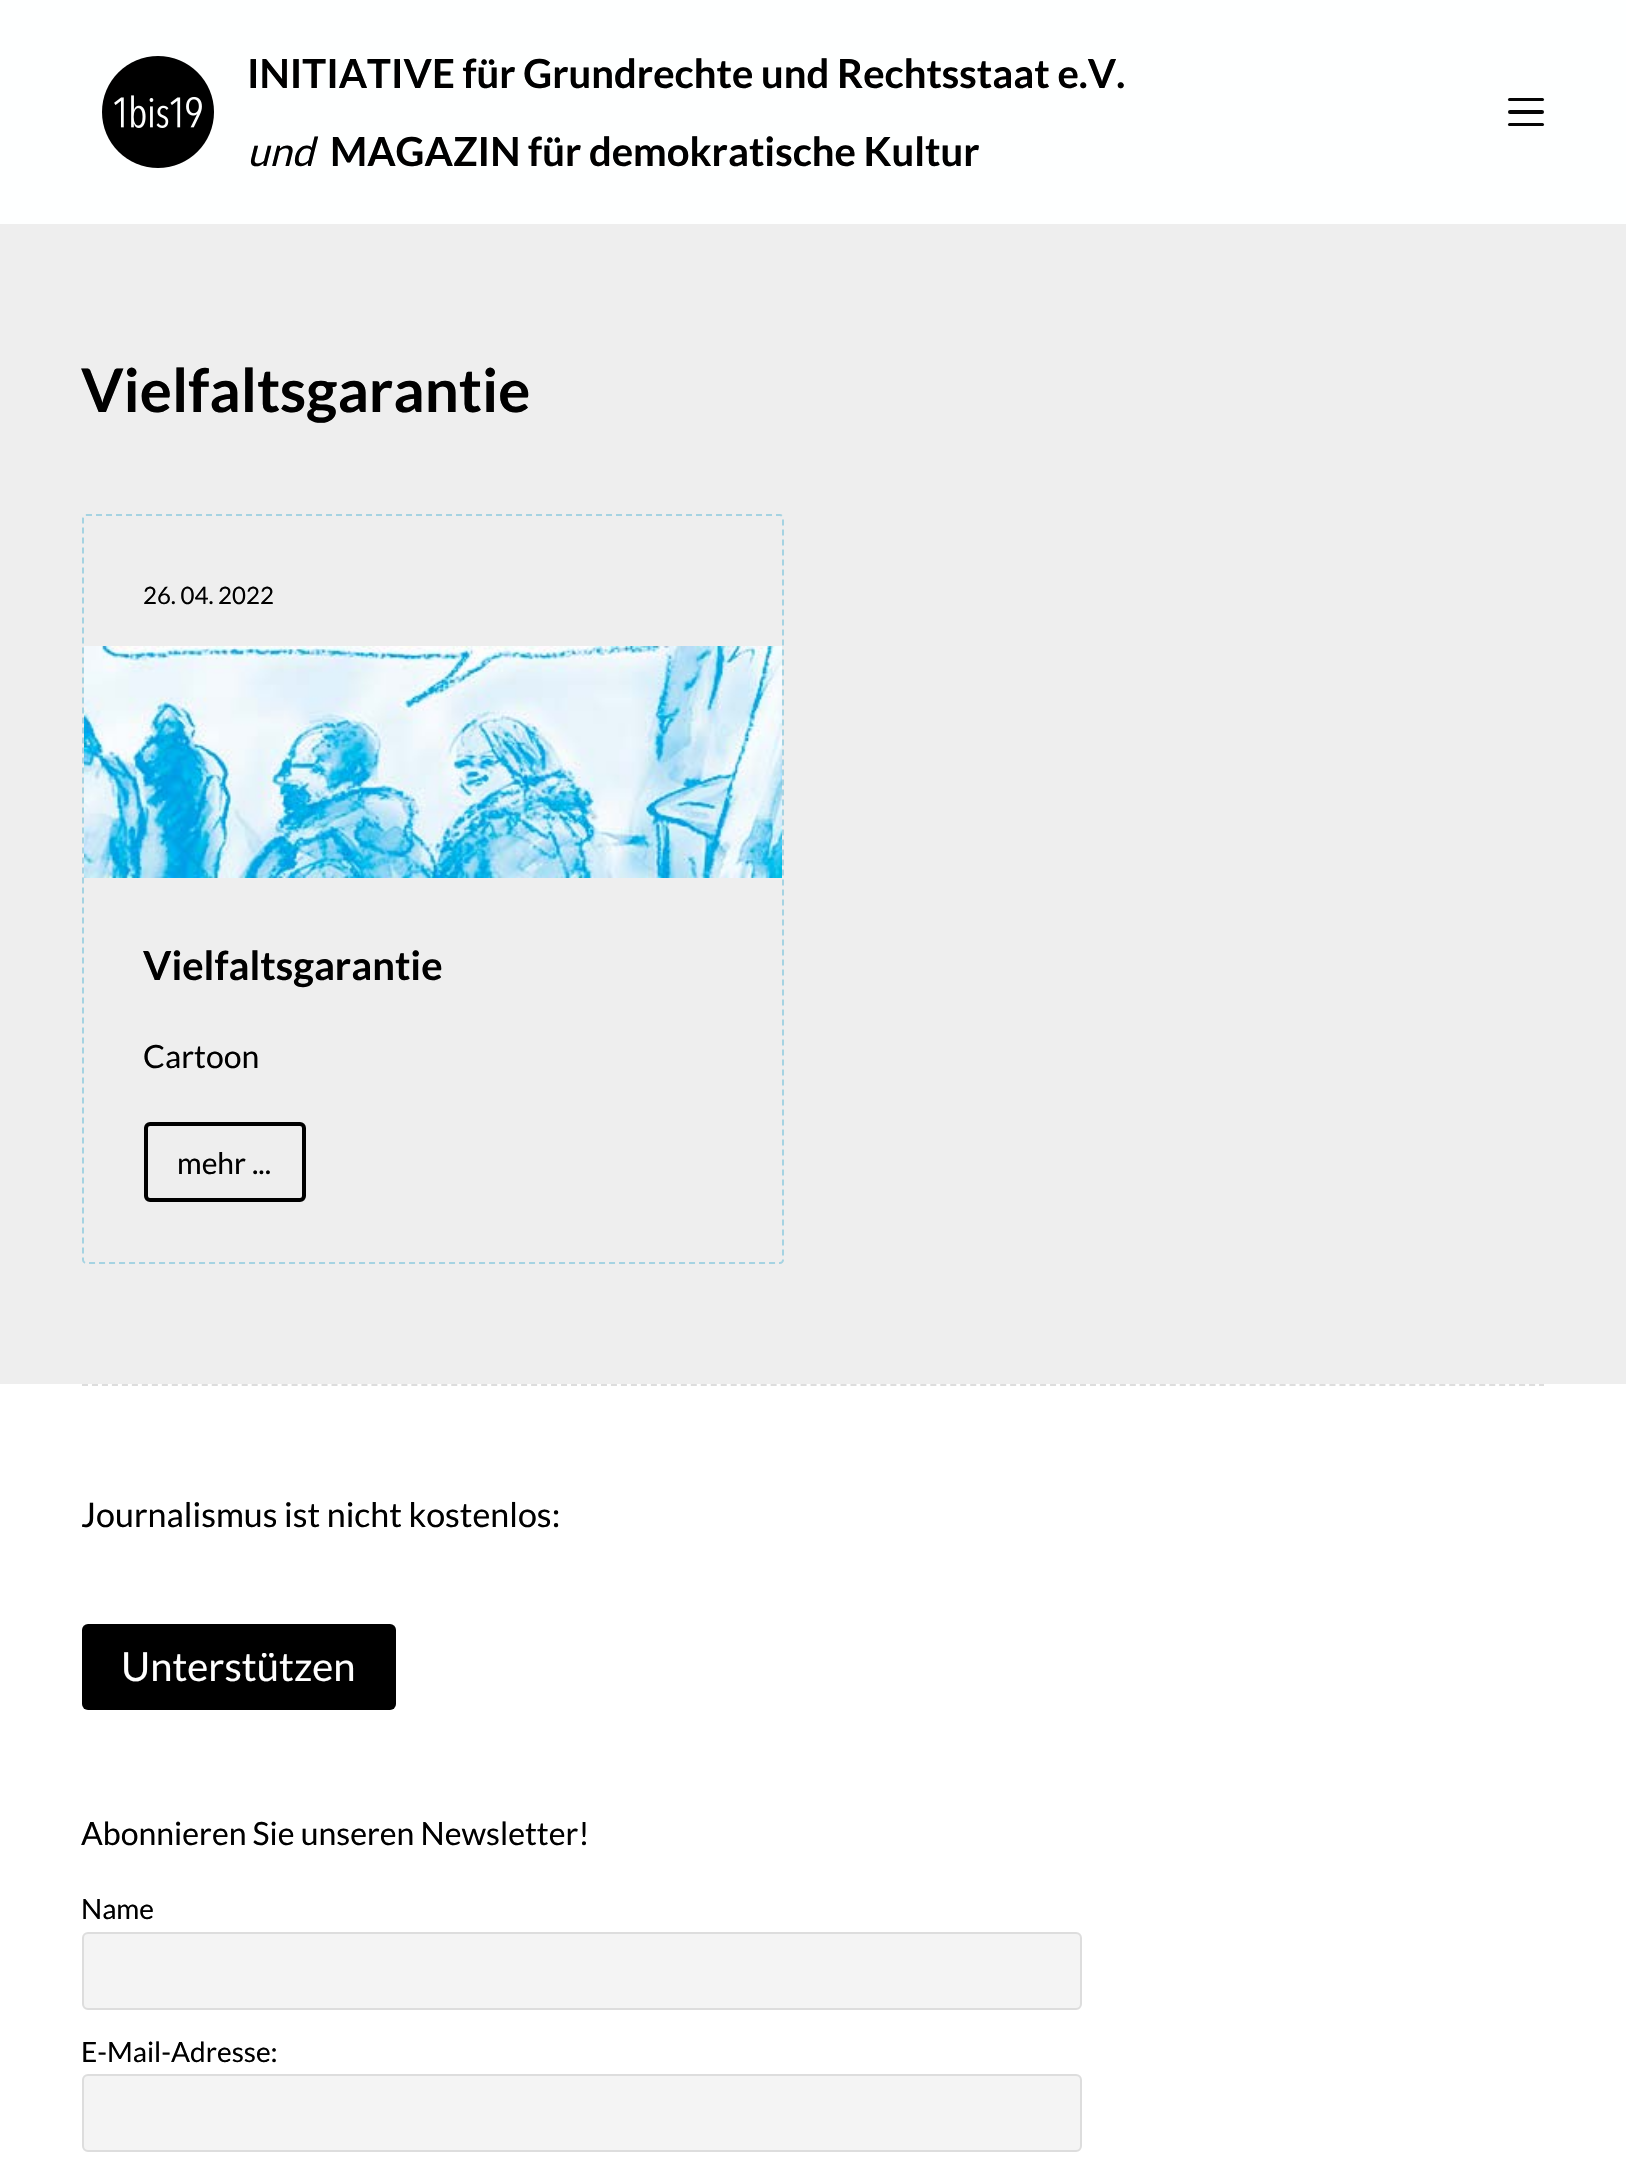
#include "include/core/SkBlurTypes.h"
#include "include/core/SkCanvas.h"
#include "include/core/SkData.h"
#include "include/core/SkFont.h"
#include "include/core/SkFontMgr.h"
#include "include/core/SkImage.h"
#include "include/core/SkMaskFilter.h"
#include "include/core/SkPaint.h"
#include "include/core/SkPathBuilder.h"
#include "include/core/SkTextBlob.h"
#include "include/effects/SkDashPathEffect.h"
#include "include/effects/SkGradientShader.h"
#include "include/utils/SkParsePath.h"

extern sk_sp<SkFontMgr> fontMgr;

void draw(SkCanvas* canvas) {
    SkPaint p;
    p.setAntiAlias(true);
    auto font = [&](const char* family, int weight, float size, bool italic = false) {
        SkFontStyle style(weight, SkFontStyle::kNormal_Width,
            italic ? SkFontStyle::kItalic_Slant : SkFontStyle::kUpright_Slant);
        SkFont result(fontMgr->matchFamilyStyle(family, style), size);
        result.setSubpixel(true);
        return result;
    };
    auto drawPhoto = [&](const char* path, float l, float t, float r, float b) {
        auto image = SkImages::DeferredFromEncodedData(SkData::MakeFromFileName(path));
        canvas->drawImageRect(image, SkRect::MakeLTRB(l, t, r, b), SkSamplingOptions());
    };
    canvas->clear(0xFFEEEEEE);
    p.setColor(0xFFFEFFFF);
    canvas->drawRect(SkRect::MakeLTRB(0, 0, 1626, 224), p);
    drawPhoto("media/1.png", 102, 56, 214, 168);
    auto font1 = font("Lato", 700, 40);
    p.setColor(0xFF000000);
    canvas->drawString("INITIATIVE für Grundrechte und Rechtsstaat e.V.", 247, 88, font1, p);
    auto font2 = font("Lato", 400, 40, true);
    canvas->drawString("und", 247, 166, font2, p);
    canvas->drawString("MAGAZIN für demokratische Kultur", 330, 166, font1, p);
    p.setColor(0xFF050505);
    canvas->drawRoundRect(SkRect::MakeLTRB(1508, 98, 1544, 101), 1.5f, 1.5f, p);
    canvas->drawRoundRect(SkRect::MakeLTRB(1508, 110, 1544, 114), 2, 2, p);
    canvas->drawRoundRect(SkRect::MakeLTRB(1508, 123, 1544, 126), 1.5f, 1.5f, p);
    auto font3 = font("Lato", 700, 60);
    p.setColor(0xFF000000);
    canvas->drawString("Vielfaltsgarantie", 81, 412, font3, p);
    p.setStyle(SkPaint::kStroke_Style);
    p.setStrokeWidth(2);
    p.setColor(0xFFA5D3E2);
    p.setPathEffect(SkDashPathEffect::Make({{6, 4}}, 0));
    canvas->drawPath(SkPathBuilder().moveTo(86, 515).lineTo(780, 515).cubicTo(781.5f, 515, 783, 516.5f, 783, 518).lineTo(783, 1260).cubicTo(783, 1261.5f, 781.5f, 1263, 780, 1263).lineTo(86, 1263).cubicTo(84.5f, 1263, 83, 1261.5f, 83, 1260).lineTo(83, 518).cubicTo(83, 516.5f, 84.5f, 515, 86, 515).close().detach(), p);
    p.setPathEffect(nullptr);
    auto font4 = font("Lato", 400, 24);
    p.setStyle(SkPaint::kFill_Style);
    p.setColor(0xFF000000);
    canvas->drawString("26. 04. 2022", 143, 604, font4, p);
    drawPhoto("media/2.png", 84, 646, 782, 878);
    canvas->drawString("Vielfaltsgarantie", 143, 980, font1, p);
    auto font5 = font("Lato", 400, 32);
    canvas->drawString("Cartoon", 143, 1068, font5, p);
    p.setStyle(SkPaint::kStroke_Style);
    p.setStrokeWidth(4);
    canvas->drawRoundRect(SkRect::MakeLTRB(146, 1124, 304, 1200), 4, 4, p);
    auto font6 = font("Lato", 400, 30);
    p.setStyle(SkPaint::kFill_Style);
    canvas->drawString("mehr ...", 177, 1174, font6, p);
    p.setColor(0xFFFFFFFF);
    canvas->drawRect(SkRect::MakeLTRB(0, 1384, 1626, 2169), p);
    p.setStyle(SkPaint::kStroke_Style);
    p.setStrokeWidth(2);
    p.setColor(0xFFDDDDDD);
    p.setPathEffect(SkDashPathEffect::Make({{6, 3.98f}}, 0));
    canvas->drawPath(SkPathBuilder().moveTo(82, 1385).lineTo(1544, 1385).detach(), p);
    p.setPathEffect(nullptr);
    auto font7 = font("Lato", 400, 34);
    p.setStyle(SkPaint::kFill_Style);
    p.setColor(0xFF000000);
    canvas->drawString("Journalismus ist nicht kostenlos:", 81, 1527, font7, p);
    canvas->drawRoundRect(SkRect::MakeLTRB(82, 1624, 396, 1710), 6, 6, p);
    auto font8 = font("Lato", 400, 40);
    p.setColor(0xFFFFFFFF);
    canvas->drawString("Unterstützen", 121, 1681, font8, p);
    p.setColor(0xFF000000);
    canvas->drawString("Abonnieren Sie unseren Newsletter!", 81, 1845, font5, p);
    auto font9 = font("Lato", 400, 28);
    canvas->drawString("Name", 81, 1919, font9, p);
    p.setColor(0xFFF4F4F4);
    canvas->drawRoundRect(SkRect::MakeLTRB(83, 1933, 1081, 2009), 5, 5, p);
    p.setStyle(SkPaint::kStroke_Style);
    p.setColor(0xFFDDDDDD);
    canvas->drawRoundRect(SkRect::MakeLTRB(83, 1933, 1081, 2009), 5, 5, p);
    p.setStyle(SkPaint::kFill_Style);
    p.setColor(0xFF000000);
    canvas->drawString("E-Mail-Adresse:", 81, 2062, font9, p);
    p.setColor(0xFFF4F4F4);
    canvas->drawRoundRect(SkRect::MakeLTRB(83, 2075, 1081, 2151), 5, 5, p);
    p.setStyle(SkPaint::kStroke_Style);
    p.setColor(0xFFDDDDDD);
    canvas->drawRoundRect(SkRect::MakeLTRB(83, 2075, 1081, 2151), 5, 5, p);
}
